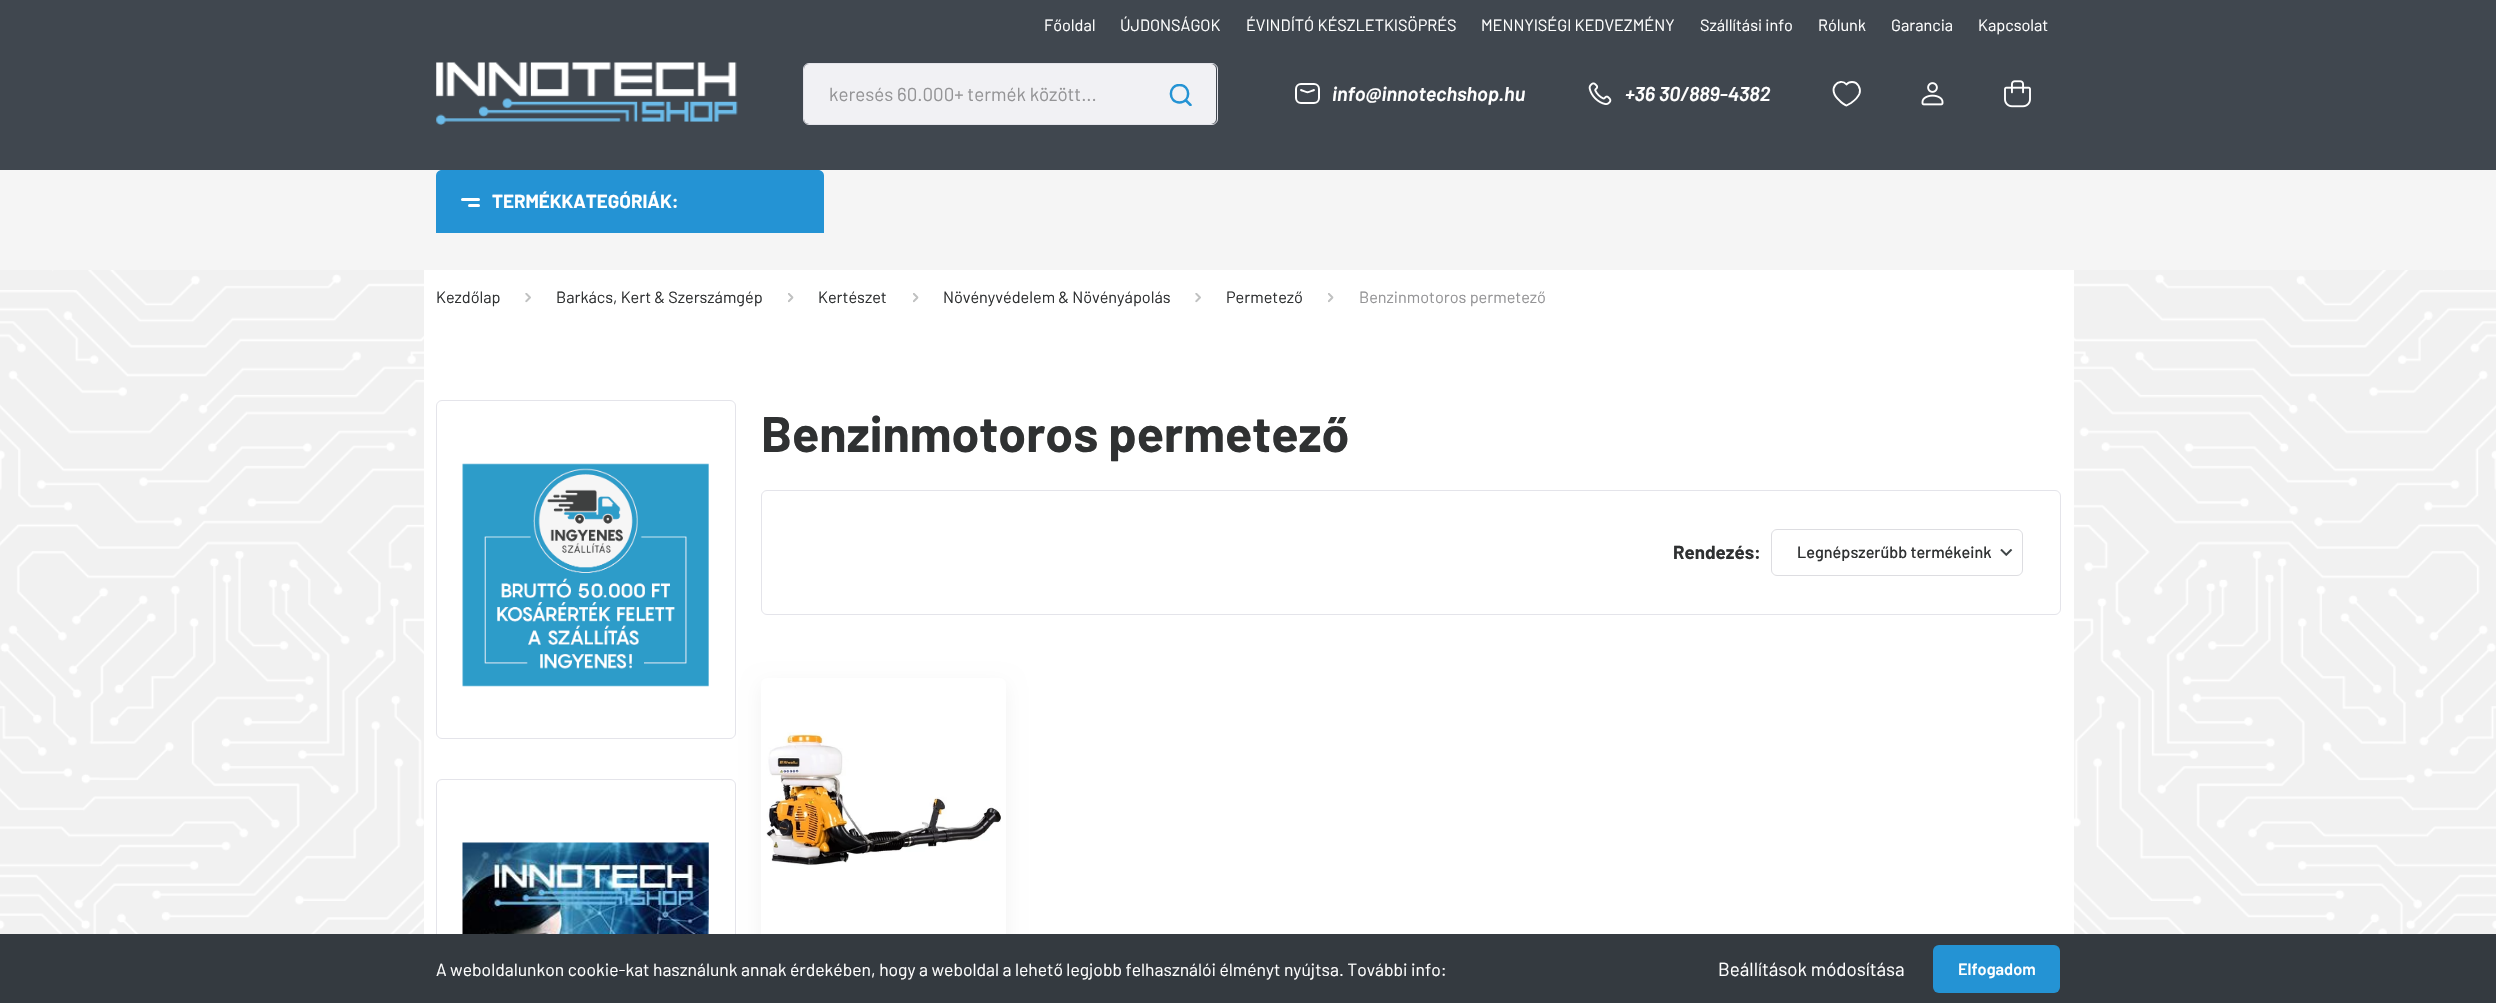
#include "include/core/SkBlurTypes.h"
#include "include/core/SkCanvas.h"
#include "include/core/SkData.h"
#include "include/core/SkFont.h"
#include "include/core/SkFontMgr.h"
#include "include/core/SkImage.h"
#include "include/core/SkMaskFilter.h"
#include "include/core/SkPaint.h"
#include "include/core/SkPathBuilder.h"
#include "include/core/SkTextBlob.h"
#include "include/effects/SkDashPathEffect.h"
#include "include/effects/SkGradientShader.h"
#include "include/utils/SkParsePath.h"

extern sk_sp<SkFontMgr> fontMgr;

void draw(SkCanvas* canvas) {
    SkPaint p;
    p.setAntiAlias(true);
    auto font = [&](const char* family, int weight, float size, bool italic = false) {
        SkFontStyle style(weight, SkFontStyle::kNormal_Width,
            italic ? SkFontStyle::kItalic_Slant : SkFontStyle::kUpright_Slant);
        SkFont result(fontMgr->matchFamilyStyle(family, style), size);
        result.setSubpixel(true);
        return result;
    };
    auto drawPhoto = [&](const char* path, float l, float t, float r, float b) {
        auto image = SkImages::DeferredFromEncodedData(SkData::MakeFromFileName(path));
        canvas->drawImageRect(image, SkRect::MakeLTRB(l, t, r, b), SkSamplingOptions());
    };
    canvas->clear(0xFFF5F5F5);
    p.setColor(0xFF40474F);
    canvas->drawRect(SkRect::MakeLTRB(0, 0, 2496, 170), p);
    auto font1 = font("Barlow", 400, 16.25f);
    p.setColor(0xFFFFFFFF);
    {
        const struct { const char* s; float x, y; } items[] = {
            {"Főoldal", 1044, 31},
            {"ÚJDONSÁGOK", 1120, 31},
            {"ÉVINDÍTÓ KÉSZLETKISÖPRÉS", 1246, 31},
            {"MENNYISÉGI KEDVEZMÉNY", 1481, 31},
            {"Szállítási info", 1700, 31},
            {"Rólunk", 1818, 31},
            {"Garancia", 1891, 31},
            {"Kapcsolat", 1978, 31},
        };
        for (auto [s, x, y] : items) {
            canvas->drawString(s, x, y, font1, p);
        }
    }
    drawPhoto("media/1.png", 436, 62, 738, 125);
    p.setColor(0xFFF1F1F4);
    canvas->drawRoundRect(SkRect::MakeLTRB(804, 64, 1216, 124), 5, 5, p);
    p.setStyle(SkPaint::kStroke_Style);
    p.setStrokeWidth(1);
    p.setColor(0xFFE4E4EA);
    canvas->drawRoundRect(SkRect::MakeLTRB(803.5f, 63.5f, 1217.5f, 124.5f), 5.5f, 5.5f, p);
    auto font2 = font("Barlow", 400, 18.75f);
    p.setStyle(SkPaint::kFill_Style);
    p.setColor(0xFF949496);
    canvas->drawString("keresés 60.000+ termék között...", 829, 101, font2, p);
    canvas->save();
    canvas->clipRect(SkRect::MakeLTRB(1169, 84, 1193, 106));
    p.setStyle(SkPaint::kStroke_Style);
    p.setStrokeWidth(2.5f);
    p.setStrokeCap(SkPaint::kRound_Cap);
    p.setStrokeJoin(SkPaint::kRound_Join);
    p.setColor(0xFF2493D4);
    canvas->drawPath(SkPathBuilder().moveTo(1190.5f, 105).lineTo(1185.5f, 100).moveTo(1179.5f, 102.5f).cubicTo(1168, 102.5f, 1168, 85, 1179.5f, 85).cubicTo(1191, 85, 1191, 102.5f, 1179.5f, 102.5f).close().detach(), p);
    canvas->restore();
    p.setStrokeWidth(2);
    p.setStrokeCap(SkPaint::kButt_Cap);
    p.setStrokeJoin(SkPaint::kMiter_Join);
    p.setColor(0xFFFFFFFF);
    canvas->drawRoundRect(SkRect::MakeLTRB(1296, 84, 1319, 103), 5, 5, p);
    p.setStrokeWidth(1.9f);
    p.setStrokeCap(SkPaint::kRound_Cap);
    p.setStrokeJoin(SkPaint::kRound_Join);
    canvas->drawPath(SkPathBuilder().moveTo(1301, 90).cubicTo(1308.5f, 93, 1306.5f, 93, 1314, 90).detach(), p);
    auto font3 = font("Barlow", 600, 20, true);
    p.setStyle(SkPaint::kFill_Style);
    canvas->drawString("info@innotechshop.hu", 1332, 101, font3, p);
    drawPhoto("media/2.png", 1588, 82, 1612, 105);
    canvas->drawString("+36 30/889-4382", 1625, 101, font3, p);
    p.setStyle(SkPaint::kStroke_Style);
    canvas->drawPath(SkPathBuilder().moveTo(1852, 82).cubicTo(1858, 82, 1861, 88.5f, 1859.5f, 93.5f).cubicTo(1858, 97.5f, 1854.5f, 100.5f, 1851, 103).lineTo(1846.5f, 105.5f).cubicTo(1845.5f, 105.5f, 1840.5f, 102, 1840, 101).cubicTo(1825, 88.5f, 1840, 76.5f, 1846.5f, 84.5f).cubicTo(1847.5f, 83, 1849.5f, 82, 1852, 82).close().detach(), p);
    drawPhoto("media/3.png", 1921, 82, 1944, 106);
    drawPhoto("media/4.png", 2004, 80, 2031, 108);
    p.setStyle(SkPaint::kFill_Style);
    p.setColor(0xFF2493D4);
    canvas->drawPath(SkPathBuilder().moveTo(442, 170).lineTo(818, 170).cubicTo(821.5f, 170, 824, 172.5f, 824, 176).lineTo(824, 233).lineTo(436, 233).lineTo(436, 176).cubicTo(436, 172.5f, 438.5f, 170, 442, 170).close().detach(), p);
    p.setColor(0xFFFFFFFF);
    canvas->drawRoundRect(SkRect::MakeLTRB(461, 198, 480, 201), 1.5f, 1.5f, p);
    canvas->drawRoundRect(SkRect::MakeLTRB(468, 204, 480, 207), 1.5f, 1.5f, p);
    auto font4 = font("Barlow", 700, 18.75f);
    canvas->drawString("TERMÉKKATEGÓRIÁK:", 492, 208, font4, p);
    drawPhoto("media/5.png", 0, 270, 2496, 934);
    canvas->drawRect(SkRect::MakeLTRB(424, 270, 2074, 934), p);
    p.setColor(0xFF2F3132);
    canvas->drawString("Kezdőlap", 436, 303, font1, p);
    drawPhoto("media/6.png", 525, 293, 531, 303);
    canvas->drawString("Barkács, Kert & Szerszámgép", 556, 303, font1, p);
    drawPhoto("media/7.png", 788, 293, 794, 303);
    canvas->drawString("Kertészet", 818, 303, font1, p);
    drawPhoto("media/7.png", 913, 293, 919, 303);
    canvas->drawString("Növényvédelem & Növényápolás", 943, 303, font1, p);
    drawPhoto("media/6.png", 1195, 293, 1201, 303);
    canvas->drawString("Permetező", 1226, 303, font1, p);
    drawPhoto("media/7.png", 1328, 293, 1334, 303);
    p.setColor(0xFF949496);
    canvas->drawString("Benzinmotoros permetező", 1359, 303, font1, p);
    p.setStyle(SkPaint::kStroke_Style);
    p.setStrokeWidth(1);
    p.setStrokeCap(SkPaint::kButt_Cap);
    p.setStrokeJoin(SkPaint::kMiter_Join);
    p.setColor(0xFFE4E4EA);
    canvas->drawRoundRect(SkRect::MakeLTRB(436.5f, 400.5f, 735.5f, 738.5f), 5.5f, 5.5f, p);
    drawPhoto("media/8.png", 462, 463, 709, 687);
    canvas->drawRoundRect(SkRect::MakeLTRB(436.5f, 779.5f, 735.5f, 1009.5f), 5.5f, 5.5f, p);
    drawPhoto("media/9.png", 462, 842, 709, 934);
    auto font5 = font("Barlow", 700, 50);
    p.setStyle(SkPaint::kFill_Style);
    p.setColor(0xFF2F3132);
    canvas->drawString("Benzinmotoros permetező", 761, 452, font5, p);
    p.setStyle(SkPaint::kStroke_Style);
    p.setColor(0xFFE4E4EA);
    canvas->drawRoundRect(SkRect::MakeLTRB(761.5f, 490.5f, 2060.5f, 614.5f), 5.5f, 5.5f, p);
    p.setStyle(SkPaint::kFill_Style);
    p.setColor(0xFF2F3132);
    canvas->drawString("Rendezés:", 1673, 559, font4, p);
    drawPhoto("media/10.png", 2000, 549, 2013, 556);
    p.setStyle(SkPaint::kStroke_Style);
    p.setColor(0xFFDDDDE1);
    canvas->drawRoundRect(SkRect::MakeLTRB(1771.5f, 529.5f, 2022.5f, 575.5f), 5.5f, 5.5f, p);
    auto font6 = font("Barlow", 500, 16.25f);
    p.setStyle(SkPaint::kFill_Style);
    p.setColor(0xFF2F3132);
    canvas->drawString("Legnépszerűbb termékeink", 1797, 558, font6, p);
    p.setColor(0x0D000000);
    p.setMaskFilter(SkMaskFilter::MakeBlur(kNormal_SkBlurStyle, 9.5f));
    canvas->drawRoundRect(SkRect::MakeLTRB(761, 684, 1006, 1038), 6, 6, p);
    p.setMaskFilter(nullptr);
    p.setColor(0xFFFFFFFF);
    canvas->drawRoundRect(SkRect::MakeLTRB(761, 678, 1006, 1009), 6, 6, p);
    drawPhoto("media/11.png", 766, 732, 1001, 866);
    p.setColor(0xFF343A40);
    canvas->drawRect(SkRect::MakeLTRB(0, 934, 2496, 1003), p);
    auto font7 = font("Barlow", 400, 17.5f);
    p.setColor(0xFFFFFFFF);
    canvas->drawString("A weboldalunkon cookie-kat használunk annak érdekében, hogy a weboldal a lehető legjobb felhasználói élményt nyújtsa. További info:", 436, 976, font7, p);
    canvas->drawString("Beállítások módosítása", 1718, 976, font2, p);
    p.setColor(0xFF2493D4);
    canvas->drawRoundRect(SkRect::MakeLTRB(1933, 945, 2060, 993), 6, 6, p);
    auto font8 = font("Barlow", 600, 16.25f);
    p.setColor(0xFFFFFFFF);
    canvas->drawString("Elfogadom", 1958, 975, font8, p);
}
